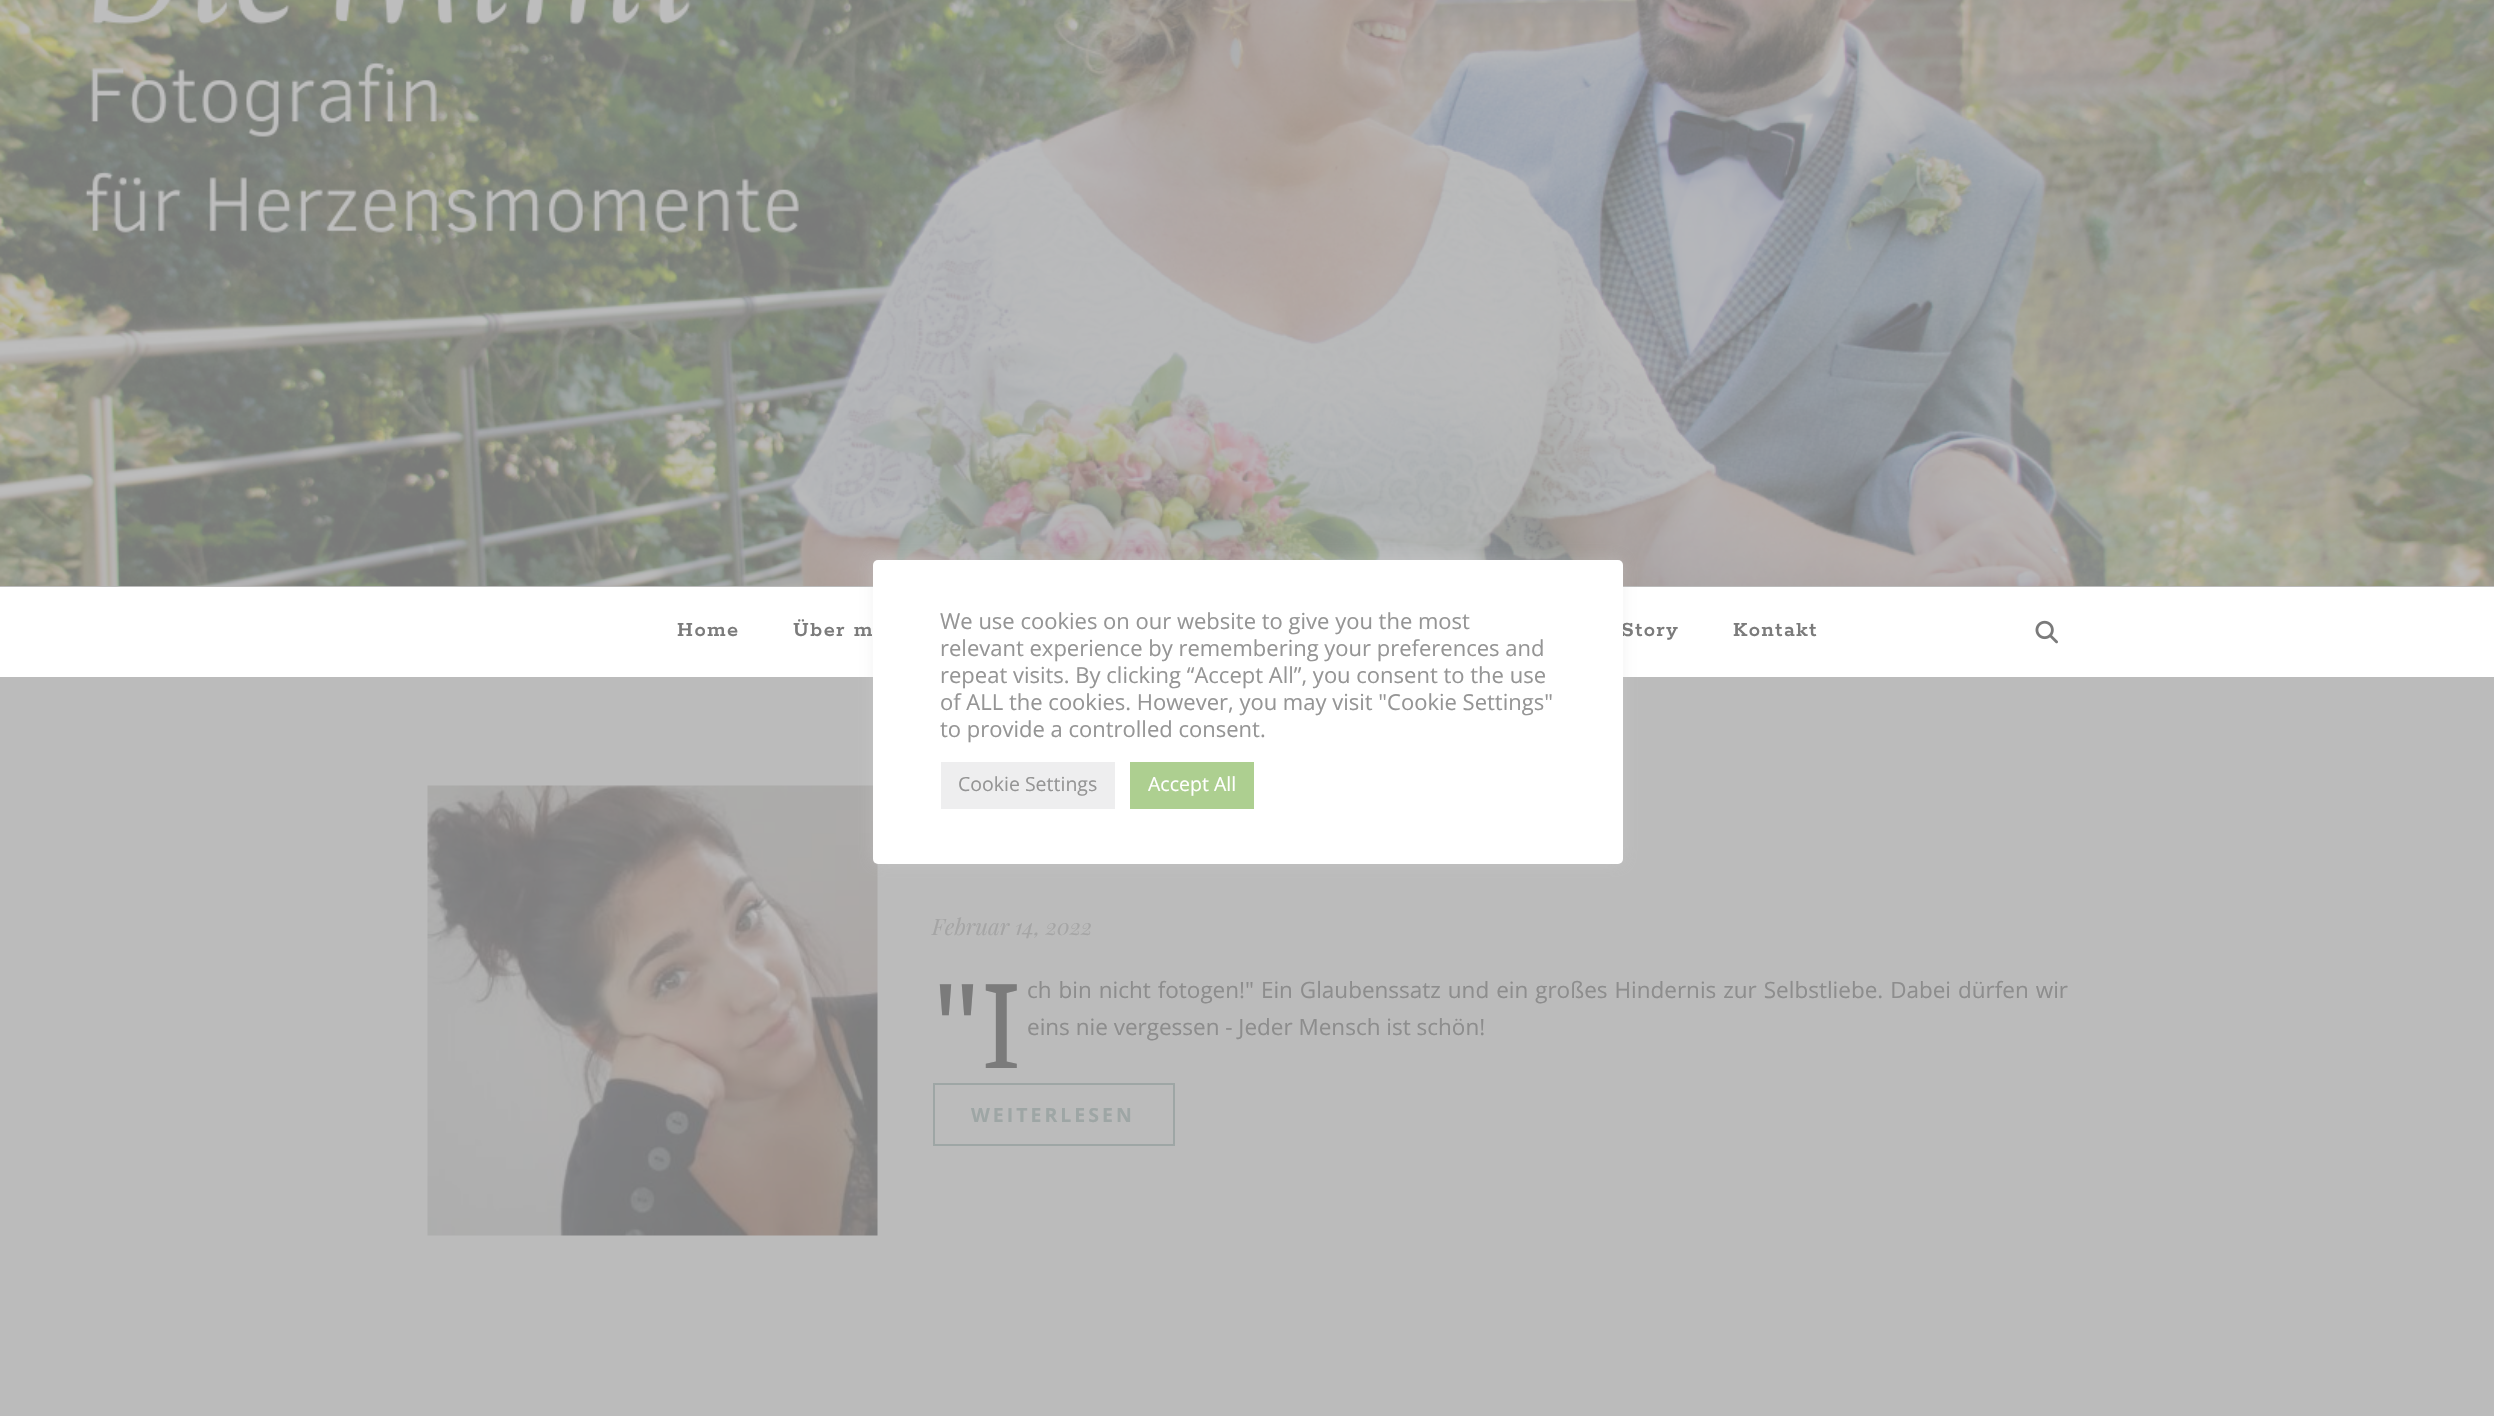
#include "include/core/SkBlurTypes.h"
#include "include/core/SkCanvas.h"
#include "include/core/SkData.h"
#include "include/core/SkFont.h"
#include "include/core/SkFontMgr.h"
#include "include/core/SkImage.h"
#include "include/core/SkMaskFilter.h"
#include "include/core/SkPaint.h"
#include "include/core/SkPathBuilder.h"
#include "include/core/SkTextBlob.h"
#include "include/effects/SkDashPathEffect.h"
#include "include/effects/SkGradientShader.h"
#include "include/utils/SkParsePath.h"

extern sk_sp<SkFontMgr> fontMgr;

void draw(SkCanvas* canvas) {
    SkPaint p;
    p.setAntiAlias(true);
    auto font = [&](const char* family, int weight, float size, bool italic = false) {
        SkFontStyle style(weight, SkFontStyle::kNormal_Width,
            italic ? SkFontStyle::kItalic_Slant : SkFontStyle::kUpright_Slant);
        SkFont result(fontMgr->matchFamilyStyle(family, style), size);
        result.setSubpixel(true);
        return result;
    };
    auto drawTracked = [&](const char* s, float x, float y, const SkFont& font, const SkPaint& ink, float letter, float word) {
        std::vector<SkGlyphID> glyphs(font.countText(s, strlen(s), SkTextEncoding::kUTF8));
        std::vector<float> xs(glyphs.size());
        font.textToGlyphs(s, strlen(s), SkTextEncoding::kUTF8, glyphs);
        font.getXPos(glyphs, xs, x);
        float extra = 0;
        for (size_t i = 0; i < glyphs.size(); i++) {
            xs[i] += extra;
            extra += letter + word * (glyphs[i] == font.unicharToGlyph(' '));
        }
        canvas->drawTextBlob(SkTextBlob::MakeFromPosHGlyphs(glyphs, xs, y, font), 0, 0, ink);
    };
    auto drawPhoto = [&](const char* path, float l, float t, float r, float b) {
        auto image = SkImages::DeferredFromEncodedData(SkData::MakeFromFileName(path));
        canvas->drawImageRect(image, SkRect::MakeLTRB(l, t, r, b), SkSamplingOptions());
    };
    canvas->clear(0xFFBBBBBB);
    drawPhoto("media/1.png", 0, 0, 2494, 586);
    p.setColor(0xFFFFFFFF);
    canvas->drawRect(SkRect::MakeLTRB(0, 587, 2494, 677), p);
    drawPhoto("media/3.png", 427, 785, 878, 1236);
    p.setColor(0x4DD4D3D3);
    p.setMaskFilter(SkMaskFilter::MakeBlur(kNormal_SkBlurStyle, 7.5f));
    canvas->drawRoundRect(SkRect::MakeLTRB(873, 558, 1623, 863), 5, 5, p);
    p.setMaskFilter(nullptr);
    auto font1 = font("Rokkitt", 600, 22.5f);
    p.setColor(0xFF7B7B7B);
    drawTracked("Story", 1621, 636, font1, p, 1.5f, 0);
    p.setColor(0xFFFFFFFF);
    canvas->drawRoundRect(SkRect::MakeLTRB(873, 560, 1623, 864), 5, 5, p);
    auto font2 = font("Open Sans", 400, 22);
    p.setColor(0xFF959595);
    {
        const struct { const char* s; float x, y; } items[] = {
            {"We use cookies on our website to give you the most", 940, 629},
            {"relevant experience by remembering your preferences and", 940, 656},
            {"repeat visits. By clicking “Accept All”, you consent to the use", 940, 683},
            {"of ALL the cookies. However, you may visit \"Cookie Settings\"", 940, 710},
            {"to provide a controlled consent.", 940, 737},
        };
        for (auto [s, x, y] : items) {
            canvas->drawString(s, x, y, font2, p);
        }
    }
    p.setColor(0xFFEEEEEF);
    canvas->drawRect(SkRect::MakeLTRB(941, 762, 1115, 809), p);
    auto font3 = font("Open Sans", 400, 19.5f);
    p.setColor(0xFF959595);
    canvas->drawString("Cookie Settings", 958, 791, font3, p);
    p.setColor(0xFFADCF90);
    canvas->drawRect(SkRect::MakeLTRB(1130, 762, 1254, 809), p);
    p.setColor(0xFFFFFFFF);
    canvas->drawString("Accept All", 1148, 791, font3, p);
    p.setColor(0xFF7B7B7B);
    {
        const struct { const char* s; float x, y; } items[] = {
            {"Home", 677, 636},
            {"Über m", 793, 636},
            {"Kontakt", 1733, 636},
        };
        for (auto [s, x, y] : items) {
            drawTracked(s, x, y, font1, p, 1.5f, 0);
        }
    }
    drawPhoto("media/2.png", 2035, 620, 2058, 644);
    auto font4 = font("Playfair Display", 400, 22.5f, true);
    p.setColor(0xFFA5A5A5);
    canvas->drawString("Februar 14, 2022", 932, 935, font4, p);
    canvas->save();
    canvas->clipRect(SkRect::MakeLTRB(933, 971, 2069, 1068));
    auto font5 = font("Noto Sans", 400, 120);
    p.setColor(0xFF7B7B7B);
    canvas->drawString("\"I", 932, 1070, font5, p);
    canvas->restore();
    auto font6 = font("Open Sans", 400, 22.5f);
    p.setColor(0xFF8D8D8D);
    drawTracked("ch bin nicht fotogen!\" Ein Glaubenssatz und ein großes Hindernis zur Selbstliebe. Dabei dürfen wir", 1027, 998, font6, p, 0, 1.1f);
    canvas->drawString("eins nie vergessen - Jeder Mensch ist schön!", 1027, 1035, font6, p);
    p.setStyle(SkPaint::kStroke_Style);
    p.setStrokeWidth(2);
    p.setColor(0xFF9EA6A5);
    canvas->drawRect(SkRect::MakeLTRB(934, 1084, 1174, 1145), p);
    auto font7 = font("Open Sans", 700, 19.5f);
    p.setStyle(SkPaint::kFill_Style);
    drawTracked("WEITERLESEN", 971, 1122, font7, p, 3, 0);
}
